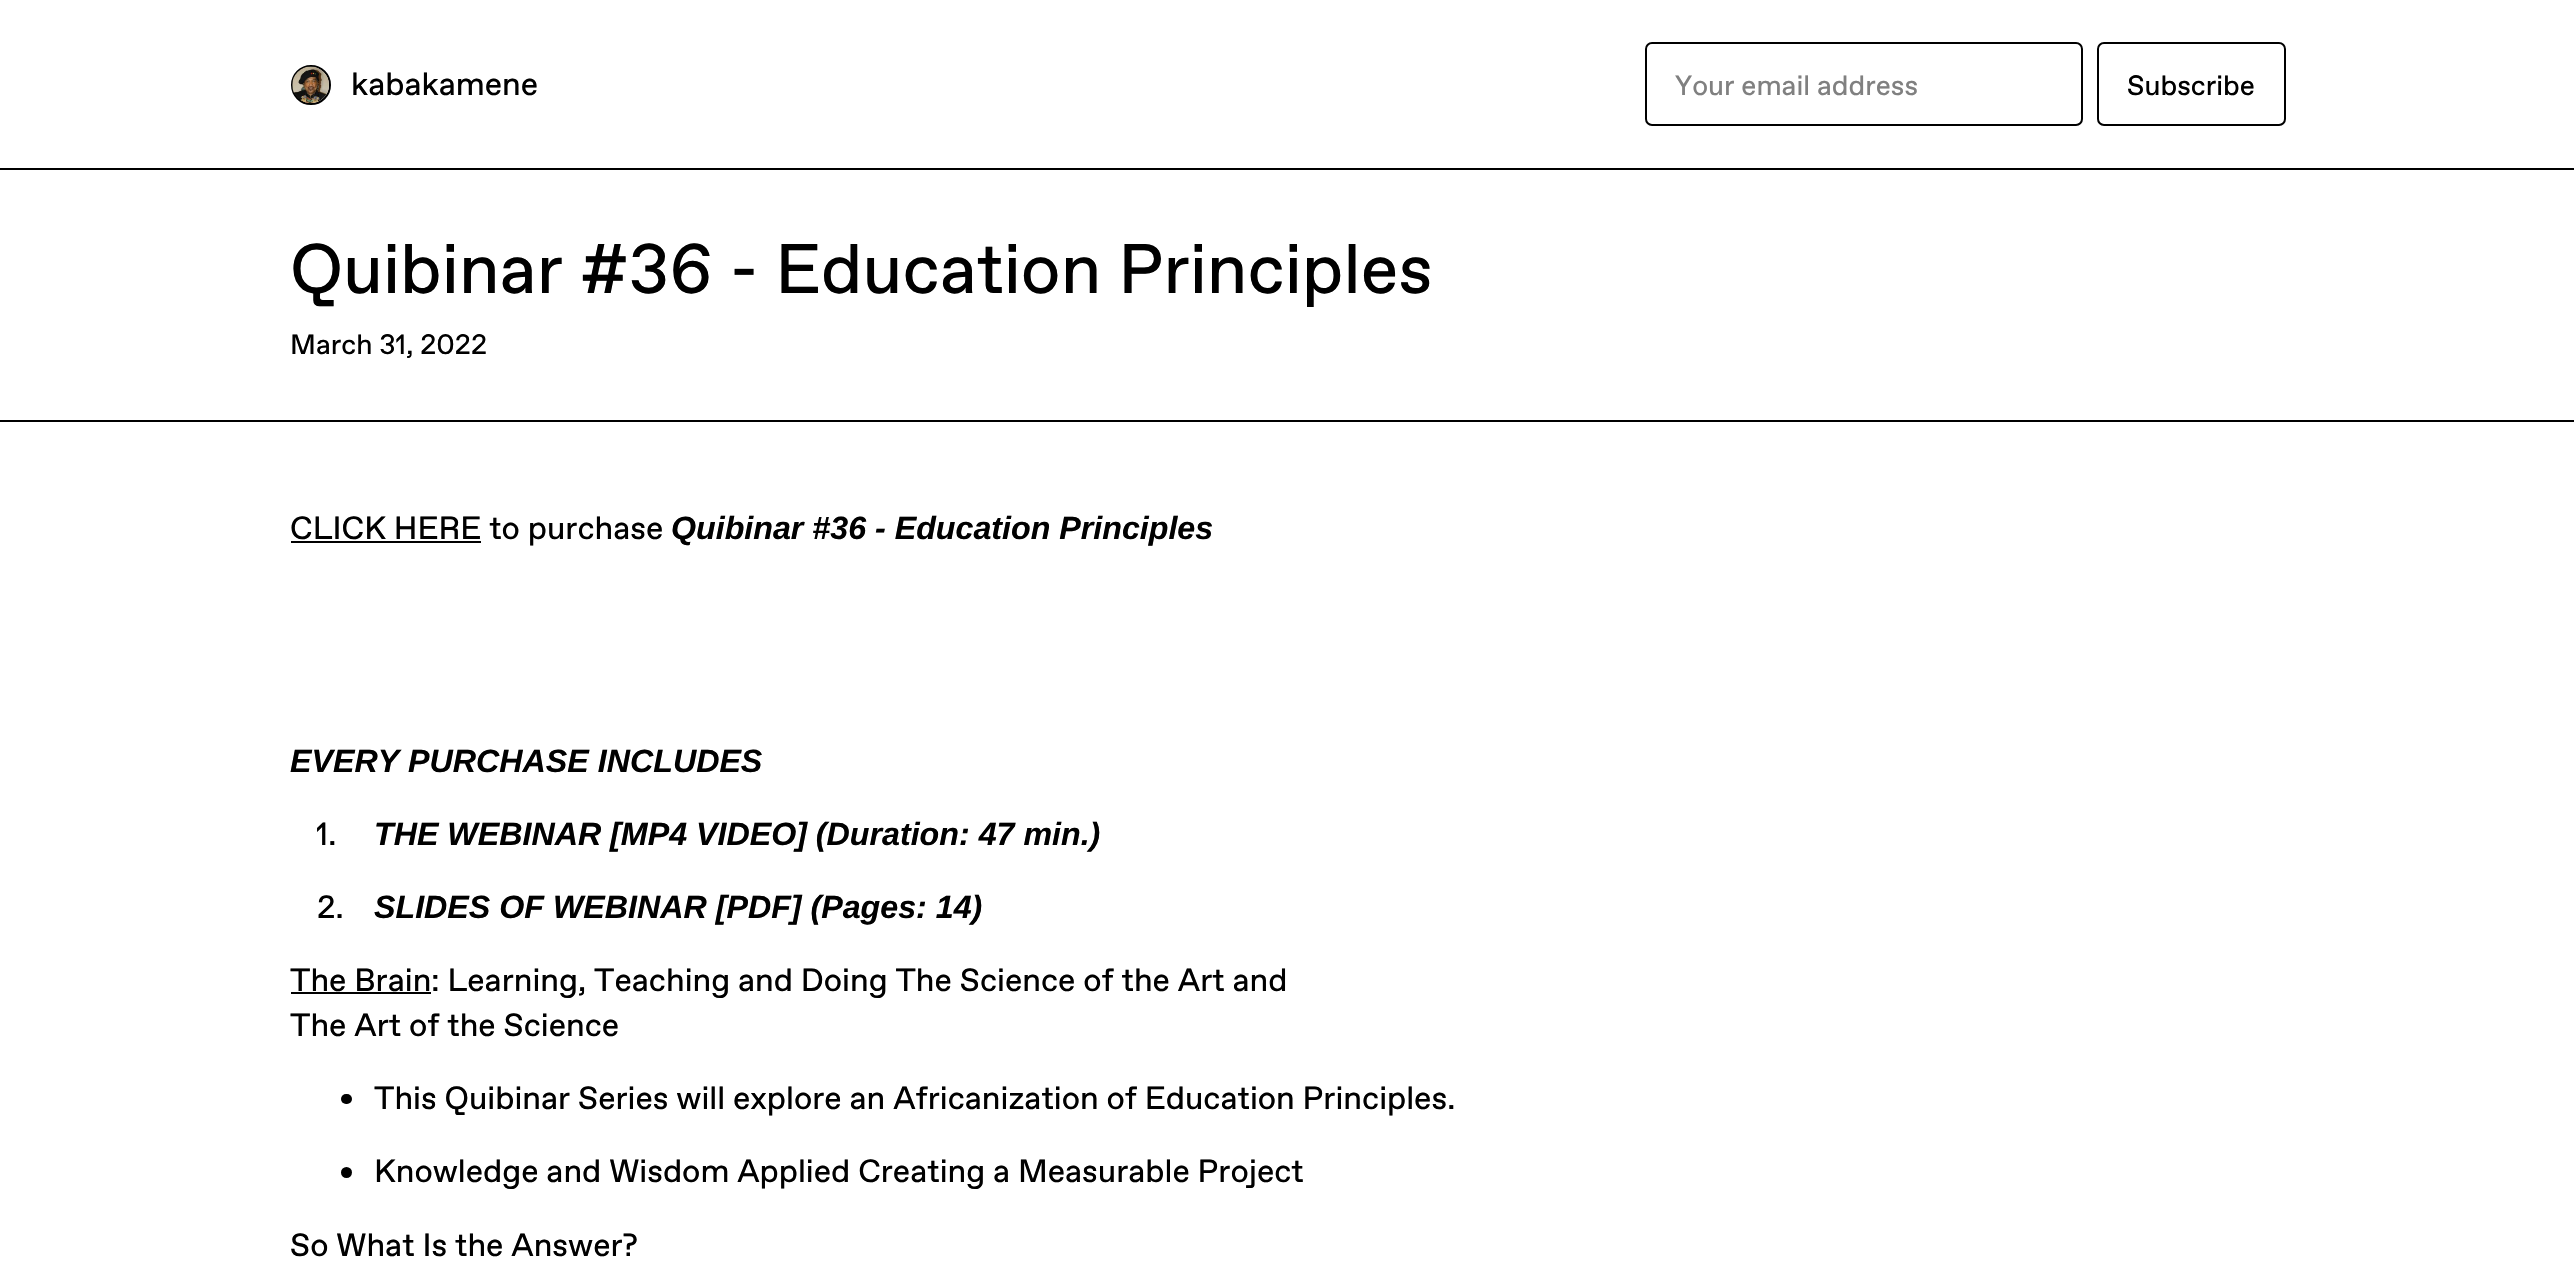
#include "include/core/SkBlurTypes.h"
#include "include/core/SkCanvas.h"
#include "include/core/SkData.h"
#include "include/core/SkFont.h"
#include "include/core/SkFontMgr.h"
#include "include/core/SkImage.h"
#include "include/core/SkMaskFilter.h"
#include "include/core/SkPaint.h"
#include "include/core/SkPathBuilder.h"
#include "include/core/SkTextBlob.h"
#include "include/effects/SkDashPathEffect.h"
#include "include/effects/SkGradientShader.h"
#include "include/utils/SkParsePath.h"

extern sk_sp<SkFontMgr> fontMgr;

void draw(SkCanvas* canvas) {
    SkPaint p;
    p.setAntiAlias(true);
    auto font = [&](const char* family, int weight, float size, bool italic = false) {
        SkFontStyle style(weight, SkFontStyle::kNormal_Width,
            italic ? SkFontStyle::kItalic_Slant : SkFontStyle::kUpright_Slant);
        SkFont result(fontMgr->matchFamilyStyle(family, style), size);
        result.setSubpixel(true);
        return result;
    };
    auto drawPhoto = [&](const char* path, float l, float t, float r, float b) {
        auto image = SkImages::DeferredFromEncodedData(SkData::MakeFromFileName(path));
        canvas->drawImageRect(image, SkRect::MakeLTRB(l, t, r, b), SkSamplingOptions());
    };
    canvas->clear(0xFFFFFFFF);
    p.setColor(0xFF000000);
    canvas->drawRect(SkRect::MakeLTRB(0, 168, 2574, 170), p);
    p.setStyle(SkPaint::kStroke_Style);
    p.setStrokeWidth(2);
    canvas->drawCircle(311, 85, 19, p);
    drawPhoto("media/1.png", 292, 66, 329, 104);
    auto font1 = font("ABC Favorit", 400, 32.2f);
    p.setStyle(SkPaint::kFill_Style);
    canvas->drawString("kabakamene", 351, 95, font1, p);
    p.setStyle(SkPaint::kStroke_Style);
    canvas->drawRoundRect(SkRect::MakeLTRB(1646, 43, 2082, 125), 6, 6, p);
    auto font2 = font("ABC Favorit", 400, 28);
    p.setStyle(SkPaint::kFill_Style);
    p.setColor(0xFF808080);
    canvas->drawString("Your email address", 1675, 95, font2, p);
    p.setStyle(SkPaint::kStroke_Style);
    p.setColor(0xFF000000);
    canvas->drawRoundRect(SkRect::MakeLTRB(2098, 43, 2285, 125), 6, 6, p);
    p.setStyle(SkPaint::kFill_Style);
    canvas->drawString("Subscribe", 2127, 95, font2, p);
    canvas->drawRect(SkRect::MakeLTRB(0, 420, 2574, 422), p);
    auto font3 = font("ABC Favorit", 400, 70);
    canvas->drawString("Quibinar #36 - Education Principles", 290, 293, font3, p);
    canvas->drawString("March 31, 2022", 290, 354, font2, p);
    canvas->drawRect(SkRect::MakeLTRB(291, 541, 481, 543), p);
    canvas->drawString("CLICK HERE to purchase", 290, 539, font1, p);
    auto font4 = font("Liberation Sans", 700, 32.2f, true);
    canvas->drawString("Quibinar #36 - Education Principles", 671, 539, font4, p);
    canvas->drawString("EVERY PURCHASE INCLUDES", 290, 772, font4, p);
    canvas->drawString("1.", 316, 845, font1, p);
    canvas->drawString("THE WEBINAR [MP4 VIDEO] (Duration: 47 min.)", 374, 845, font4, p);
    canvas->drawString("2.", 317, 918, font1, p);
    canvas->drawString("SLIDES OF WEBINAR [PDF] (Pages: 14)", 374, 918, font4, p);
    canvas->drawRect(SkRect::MakeLTRB(291, 992, 431, 994), p);
    canvas->drawString("The Brain: Learning, Teaching and Doing The Science of the Art and", 290, 991, font1, p);
    canvas->drawString("The Art of the Science", 290, 1036, font1, p);
    canvas->drawRoundRect(SkRect::MakeLTRB(341, 1094, 352, 1104), 5, 5, p);
    canvas->drawString("This Quibinar Series will explore an Africanization of Education Principles.", 374, 1109, font1, p);
    canvas->drawCircle(346.5f, 1172.5f, 5.5f, p);
    canvas->drawString("Knowledge and Wisdom Applied Creating a Measurable Project", 374, 1182, font1, p);
    canvas->drawString("So What Is the Answer?", 290, 1256, font1, p);
}
